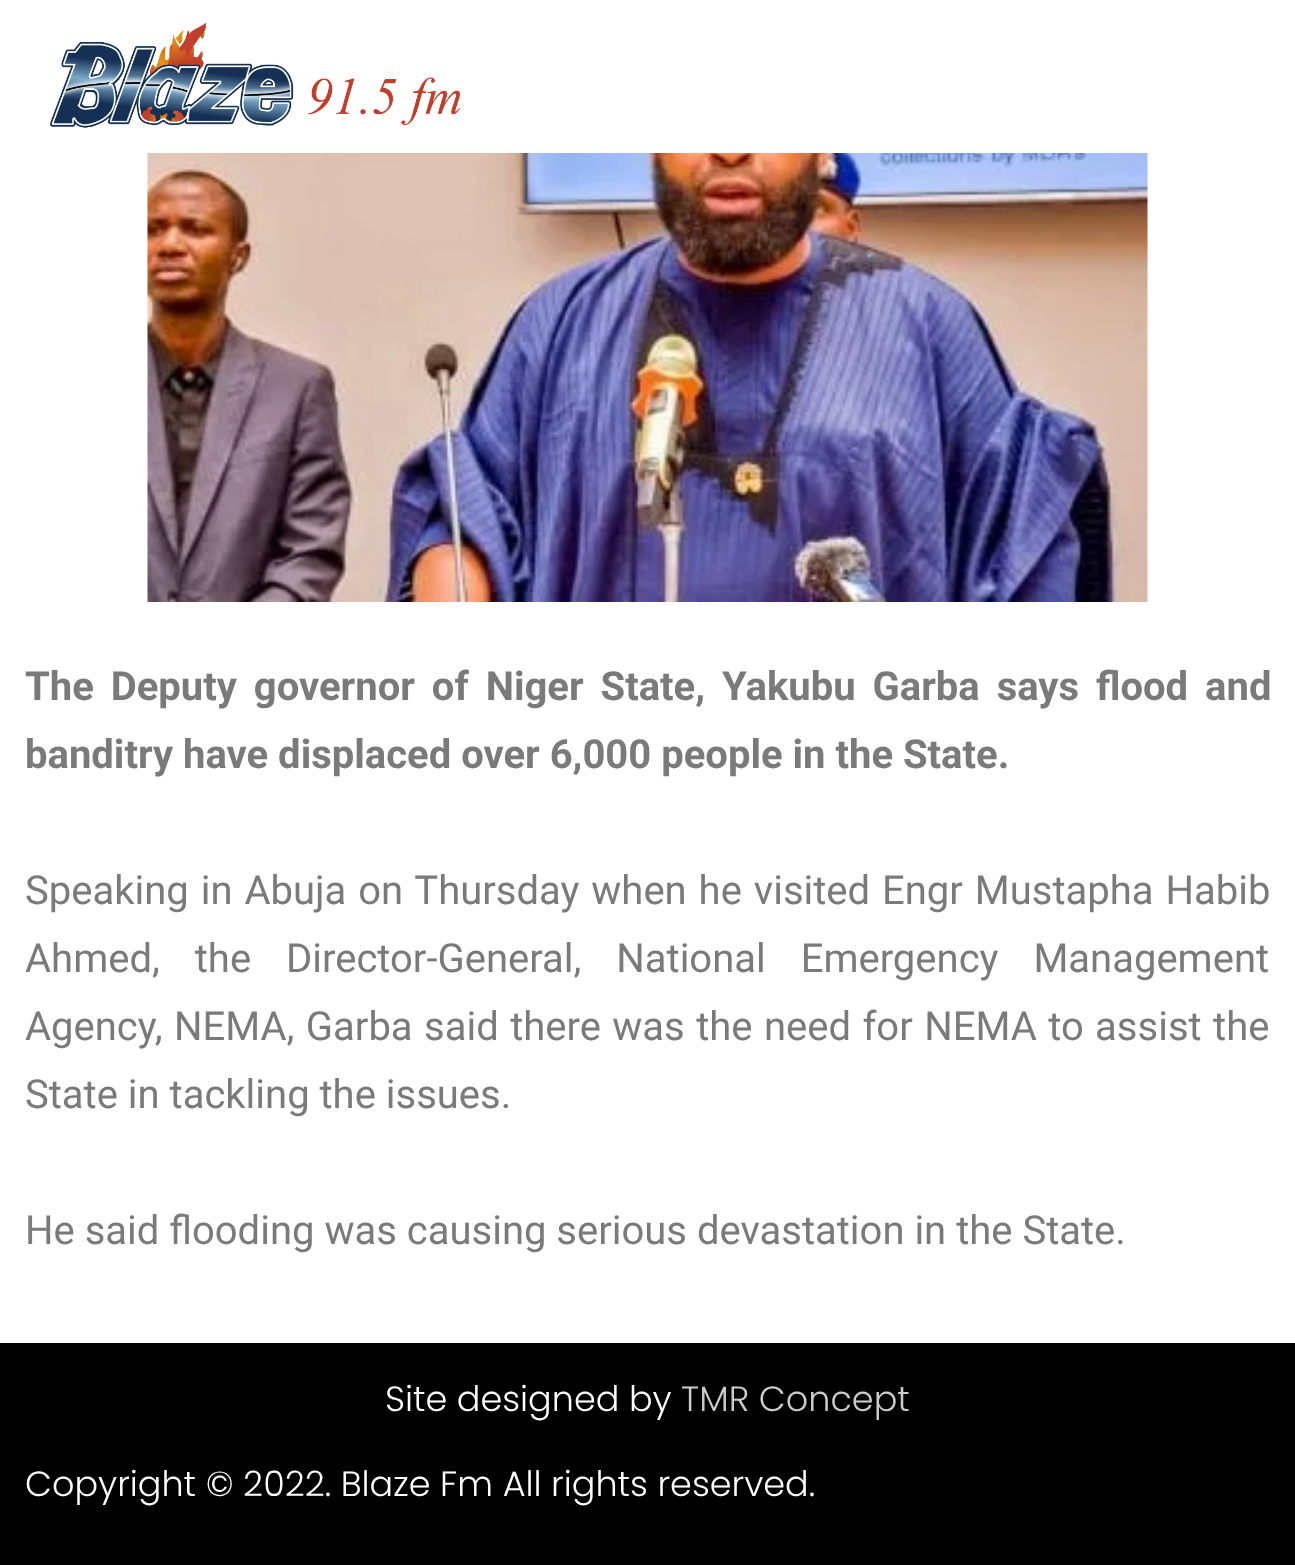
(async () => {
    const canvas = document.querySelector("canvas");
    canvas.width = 1295;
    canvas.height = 1565;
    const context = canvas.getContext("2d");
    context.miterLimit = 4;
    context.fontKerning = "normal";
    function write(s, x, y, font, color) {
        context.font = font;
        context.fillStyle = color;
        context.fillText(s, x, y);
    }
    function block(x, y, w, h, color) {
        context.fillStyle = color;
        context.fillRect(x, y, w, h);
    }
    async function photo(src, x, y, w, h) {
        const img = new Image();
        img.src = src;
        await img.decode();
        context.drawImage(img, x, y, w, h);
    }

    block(0, 0, 1295, 1565, "rgb(255, 255, 255)");
    await photo("media/1.png", 50, 23, 410, 105);
    await photo("media/2.png", 147, 153, 1001, 449);
    context.wordSpacing = "7px";
    write("The Deputy governor of Niger State, Yakubu Garba says flood and", 25, 700, "bold 40px Roboto", "rgb(122, 122, 122)");
    context.wordSpacing = "0px";
    write("banditry have displaced over 6,000 people in the State.", 25, 768, "bold 40px Roboto", "rgb(122, 122, 122)");
    context.wordSpacing = "2px";
    write("Speaking in Abuja on Thursday when he visited Engr Mustapha Habib", 25, 904, "40px Roboto", "rgb(122, 122, 122)");
    context.wordSpacing = "25px";
    write("Ahmed, the Director-General, National Emergency Management", 25, 972, "40px Roboto", "rgb(122, 122, 122)");
    context.wordSpacing = "1.5px";
    write("Agency, NEMA, Garba said there was the need for NEMA to assist the", 25, 1040, "40px Roboto", "rgb(122, 122, 122)");
    context.wordSpacing = "0px";
    write("State in tackling the issues.", 25, 1108, "40px Roboto", "rgb(122, 122, 122)");
    write("He said flooding was causing serious devastation in the State.", 25, 1244, "40px Roboto", "rgb(122, 122, 122)");
    block(0, 1343, 1295, 222, "rgb(0, 0, 0)");
    write("Site designed by", 385, 1411, "300 35px Poppins", "rgb(255, 255, 255)");
    write("TMR Concept", 681, 1411, "300 35px Poppins", "rgb(204, 204, 204)");
    write("Copyright © 2022. Blaze Fm All rights reserved.", 25, 1496, "300 35px Poppins", "rgb(255, 255, 255)");
})();
